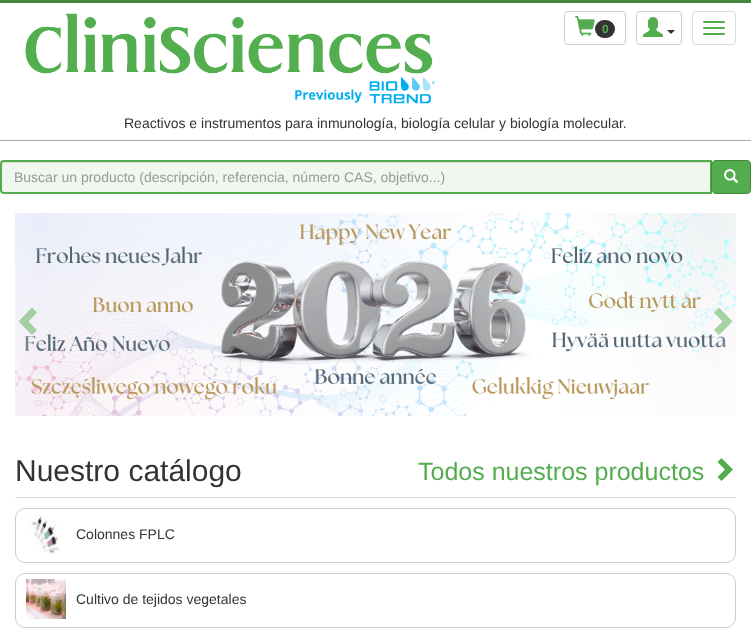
(async () => {
    const canvas = document.querySelector("canvas");
    canvas.width = 751;
    canvas.height = 633;
    const context = canvas.getContext("2d");
    context.miterLimit = 4;
    context.fontKerning = "normal";
    function write(s, x, y, font, color) {
        context.font = font;
        context.fillStyle = color;
        context.fillText(s, x, y);
    }
    function block(x, y, w, h, color) {
        context.fillStyle = color;
        context.fillRect(x, y, w, h);
    }
    function card(x, y, w, h, r, color) {
        context.fillStyle = color;
        context.beginPath();
        context.roundRect(x, y, w, h, r);
        context.fill();
    }
    async function photo(src, x, y, w, h) {
        const img = new Image();
        img.src = src;
        await img.decode();
        context.drawImage(img, x, y, w, h);
    }

    block(0, 0, 751, 633, "rgb(255, 255, 255)");
    block(0, 0, 751, 3, "rgb(66, 137, 62)");
    block(0, 140, 751, 1, "rgb(170, 170, 170)");
    await photo("media/1.png", 25, 13, 410, 91);
    context.beginPath();
    context.roundRect(564.5, 11.5, 61, 33, 3.5);
    context.strokeStyle = "rgb(204, 204, 204)";
    context.stroke();
    await photo("media/2.png", 575, 16, 20, 20);
    card(595, 20, 20, 18, 9, "rgb(51, 51, 51)");
    write("0", 602, 33, "bold 12px Liberation Sans", "rgb(83, 172, 78)");
    context.beginPath();
    context.roundRect(636.5, 11.5, 45, 33, 3.5);
    context.stroke();
    await photo("media/3.png", 643, 17, 20, 20);
    context.fillStyle = "rgb(51, 51, 51)";
    context.beginPath();
    context.moveTo(667, 30);
    context.lineTo(675, 30);
    context.lineTo(671, 34);
    context.closePath();
    context.fill();
    context.beginPath();
    context.roundRect(692.5, 11.5, 43, 33, 3.5);
    context.strokeStyle = "rgb(221, 221, 221)";
    context.stroke();
    card(703, 21, 22, 2, 1, "rgb(83, 172, 78)");
    card(703, 27, 22, 2, 1, "rgb(83, 172, 78)");
    card(703, 33, 22, 2, 1, "rgb(83, 172, 78)");
    write("Reactivos e instrumentos para inmunología, biología celular y biología molecular.", 124, 128, "14px Liberation Sans", "rgb(51, 51, 51)");
    context.fillStyle = "rgb(239, 247, 238)";
    context.beginPath();
    context.roundRect(0, 160, 712, 34, [4, 0, 0, 4]);
    context.fill();
    context.fillStyle = "rgb(221, 228, 220)";
    context.beginPath();
    context.moveTo(4, 163);
    context.lineTo(710, 163);
    context.lineTo(710, 162);
    context.lineTo(4, 162);
    context.bezierCurveTo(2, 162, 2, 164, 2, 165);
    context.bezierCurveTo(2, 164, 3, 163, 4, 163);
    context.closePath();
    context.fill();
    context.beginPath();
    context.roundRect(1, 161, 710, 32, [3, 0, 0, 3]);
    context.strokeStyle = "rgb(83, 172, 78)";
    context.lineWidth = 2;
    context.stroke();
    write("Buscar un producto (descripción, referencia, número CAS, objetivo...)", 14, 182, "14px Liberation Sans", "rgb(153, 153, 153)");
    context.fillStyle = "rgb(83, 172, 78)";
    context.beginPath();
    context.roundRect(711.5, 160.5, 39, 33, [4.5, 3.5, 3.5, 4.5]);
    context.fill();
    context.strokeStyle = "rgb(66, 137, 62)";
    context.lineWidth = 1;
    context.stroke();
    await photo("media/4.png", 724, 169, 15, 14);
    await photo("media/5.png", 15, 213, 721, 203);
    context.fillStyle = "rgba(83, 172, 78, 0.5)";
    context.beginPath();
    context.moveTo(37, 312.5);
    context.lineTo(28.5, 321.5);
    context.lineTo(37, 330);
    context.lineTo(32, 335);
    context.lineTo(18.5, 321.5);
    context.lineTo(32, 307.5);
    context.closePath();
    context.fill();
    context.beginPath();
    context.moveTo(732.5, 321.5);
    context.lineTo(719, 335);
    context.lineTo(714, 330);
    context.lineTo(722.5, 321.5);
    context.lineTo(714, 312.5);
    context.lineTo(719, 307.5);
    context.closePath();
    context.fill();
    context.fillStyle = "rgb(255, 255, 255)";
    context.beginPath();
    context.arc(312, 405, 5.5, 0, Math.PI * 2);
    context.fill();
    context.strokeStyle = "rgb(255, 255, 255)";
    context.stroke();
    context.beginPath();
    context.arc(328, 405, 4.5, 0, Math.PI * 2);
    context.stroke();
    context.beginPath();
    context.arc(344, 405, 4.5, 0, Math.PI * 2);
    context.stroke();
    context.beginPath();
    context.arc(360, 405, 4.5, 0, Math.PI * 2);
    context.stroke();
    context.beginPath();
    context.arc(376, 405, 4.5, 0, Math.PI * 2);
    context.stroke();
    context.beginPath();
    context.arc(391, 405, 4.5, 0, Math.PI * 2);
    context.stroke();
    context.beginPath();
    context.arc(407, 405, 4.5, 0, Math.PI * 2);
    context.stroke();
    context.beginPath();
    context.arc(423, 405, 4.5, 0, Math.PI * 2);
    context.stroke();
    context.beginPath();
    context.arc(439, 405, 4.5, 0, Math.PI * 2);
    context.stroke();
    block(15, 497, 721, 1, "rgb(221, 221, 221)");
    write("Nuestro catálogo", 15, 481, "30px Liberation Sans", "rgb(51, 51, 51)");
    write("Todos nuestros productos", 418, 480, "25px Liberation Sans", "rgb(83, 172, 78)");
    context.beginPath();
    context.moveTo(733, 469.5);
    context.lineTo(721.5, 481);
    context.lineTo(717.5, 477);
    context.lineTo(725, 469.5);
    context.lineTo(717.5, 462);
    context.lineTo(721.5, 458);
    context.closePath();
    context.fill();
    context.beginPath();
    context.roundRect(15.5, 508.5, 720, 54, 9.5);
    context.strokeStyle = "rgb(204, 204, 204)";
    context.stroke();
    await photo("media/6.png", 27, 514, 33, 40);
    write("Colonnes FPLC", 76, 539, "14px Liberation Sans", "rgb(51, 51, 51)");
    context.beginPath();
    context.roundRect(15.5, 573.5, 720, 54, 9.5);
    context.stroke();
    await photo("media/7.png", 26, 579, 40, 40);
    write("Cultivo de tejidos vegetales", 76, 604, "14px Liberation Sans", "rgb(51, 51, 51)");
})();
